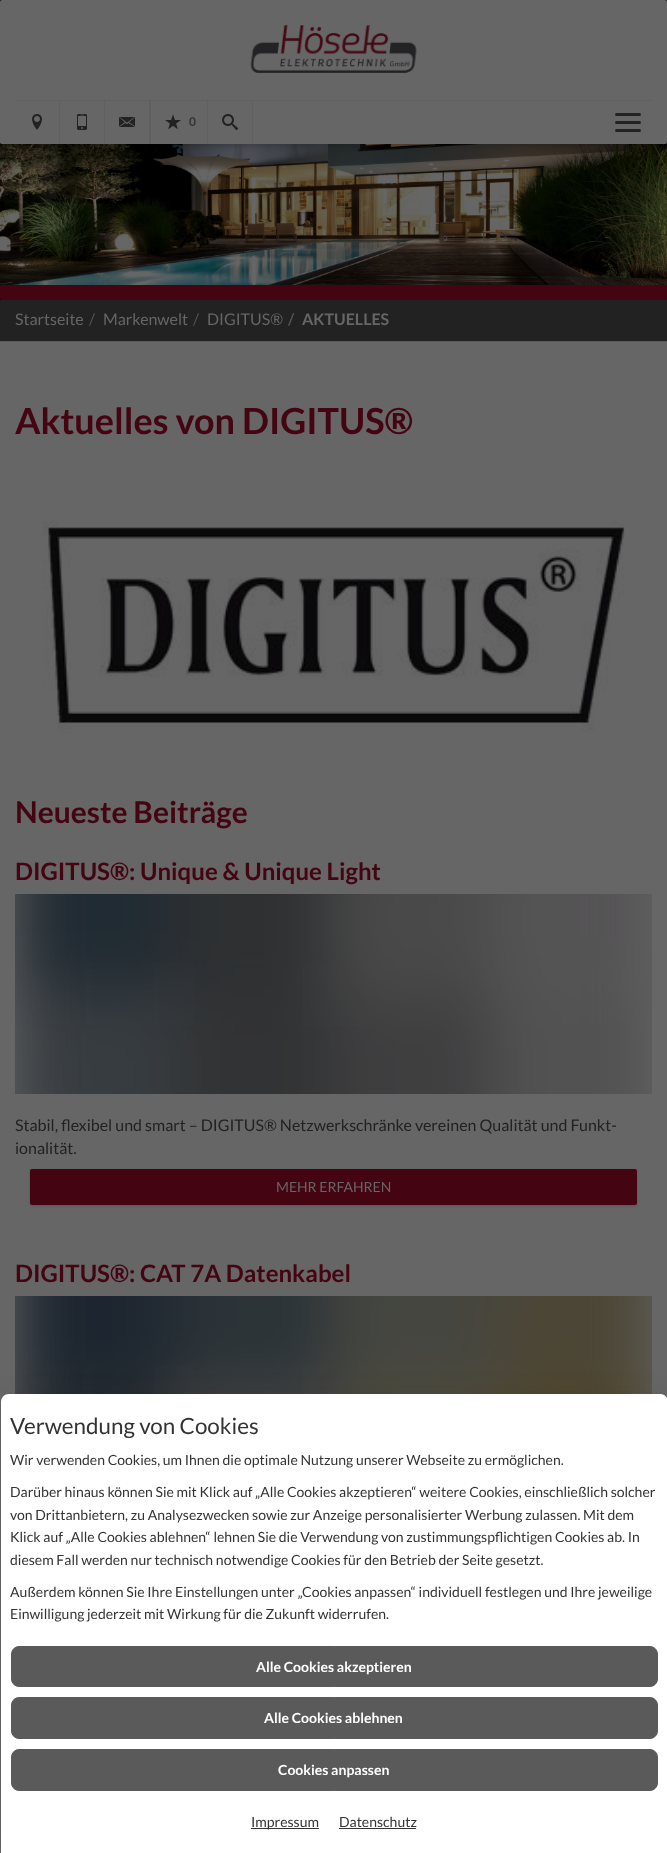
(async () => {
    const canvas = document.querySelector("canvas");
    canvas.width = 667;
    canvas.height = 1853;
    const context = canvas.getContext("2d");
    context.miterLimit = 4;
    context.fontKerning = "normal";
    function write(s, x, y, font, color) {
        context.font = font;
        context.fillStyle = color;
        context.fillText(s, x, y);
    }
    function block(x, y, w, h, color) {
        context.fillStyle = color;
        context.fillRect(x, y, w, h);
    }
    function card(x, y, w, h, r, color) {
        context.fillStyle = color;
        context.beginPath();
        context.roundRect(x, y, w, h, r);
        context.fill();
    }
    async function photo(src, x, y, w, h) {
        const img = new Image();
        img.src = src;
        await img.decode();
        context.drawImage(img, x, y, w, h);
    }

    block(0, 0, 667, 1853, "rgb(102, 102, 102)");
    context.fillStyle = "rgba(0, 0, 0, 0.1)";
    context.filter = "blur(0.5px)";
    context.beginPath();
    context.rect(0, 301, 667, 41);
    context.fill();
    context.filter = "none";
    await photo("media/7.png", 0, 0, 667, 300);
    context.fillStyle = "rgba(0, 0, 0, 0.15)";
    context.filter = "blur(2.5px)";
    context.beginPath();
    context.roundRect(0, 2, 667, 144, 2);
    context.fill();
    context.filter = "none";
    card(0, 0, 667, 144, 2, "rgb(102, 102, 102)");
    await photo("media/1.png", 250, 25, 167, 48);
    block(15, 100, 637, 1, "rgb(96, 96, 96)");
    await photo("media/2.png", 32, 114, 10, 16);
    block(59, 101, 1, 43, "rgb(96, 96, 96)");
    await photo("media/3.png", 77, 114, 10, 16);
    block(104, 101, 1, 43, "rgb(96, 96, 96)");
    await photo("media/4.png", 119, 117, 16, 10);
    block(149, 101, 2, 43, "rgb(96, 96, 96)");
    await photo("media/5.png", 165, 114, 16, 16);
    write("0", 189, 126, "bold 12px Lato", "rgb(51, 51, 51)");
    block(252, 101, 1, 43, "rgb(96, 96, 96)");
    block(207, 101, 1, 43, "rgb(96, 96, 96)");
    await photo("media/6.png", 222, 114, 16, 16);
    card(615, 113, 26, 3, 1.5, "rgb(34, 34, 34)");
    card(615, 121, 26, 3, 1.5, "rgb(34, 34, 34)");
    card(615, 129, 26, 3, 1.5, "rgb(34, 34, 34)");
    card(0, 285, 667, 15, 2, "rgb(68, 4, 17)");
    block(0, 300, 667, 41, "rgb(34, 34, 34)");
    write("Startseite", 15, 325, "16px Lato", "rgb(102, 102, 102)");
    write("/", 89, 325, "16px Lato", "rgb(82, 82, 82)");
    write("Markenwelt", 103, 325, "16px Lato", "rgb(102, 102, 102)");
    write("/", 193, 325, "16px Lato", "rgb(82, 82, 82)");
    write("DIGITUS®", 207, 325, "16px Lato", "rgb(102, 102, 102)");
    write("/", 288, 325, "bold 16px Lato", "rgb(82, 82, 82)");
    write("AKTUELLES", 302, 325, "bold 16px Lato", "rgb(102, 102, 102)");
    write("Aktuelles von DIGITUS®", 15, 434, "bold 36px Lato", "rgb(68, 4, 17)");
    await photo("media/8.png", 43, 521, 582, 212);
    write("Neueste Beiträge", 15, 823, "bold 30px Lato", "rgb(68, 4, 17)");
    write("DIGITUS®: Unique & Unique Light", 15, 880, "bold 24px Lato", "rgb(68, 4, 17)");
    await photo("media/9.png", 15, 894, 637, 200);
    write("Stabil, flexibel und smart – DIGITUS® Netzwerkschränke vereinen Qualität und Funkt-", 15, 1131, "16px Lato", "rgb(34, 34, 34)");
    write("ionalität.", 15, 1154, "16px Lato", "rgb(34, 34, 34)");
    context.fillStyle = "rgba(0, 0, 0, 0.15)";
    context.filter = "blur(1px)";
    context.beginPath();
    context.roundRect(30, 1170, 607, 36, 2);
    context.fill();
    context.filter = "none";
    card(30, 1169, 607, 36, 2, "rgb(68, 4, 17)");
    write("MEHR ERFAHREN", 276, 1192, "14px Lato", "rgb(102, 102, 102)");
    write("DIGITUS®: CAT 7A Datenkabel", 15, 1282, "bold 24px Lato", "rgb(68, 4, 17)");
    await photo("media/10.png", 15, 1296, 637, 98);
    context.fillStyle = "rgba(0, 0, 0, 0.1)";
    context.filter = "blur(14px)";
    context.beginPath();
    context.roundRect(1, 1400, 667, 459, 8);
    context.fill();
    context.filter = "none";
    context.fillStyle = "rgb(255, 255, 255)";
    context.beginPath();
    context.moveTo(9, 1394);
    context.lineTo(660, 1394);
    context.bezierCurveTo(664.5, 1394, 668, 1397.5, 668, 1402);
    context.lineTo(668, 1853);
    context.lineTo(1, 1853);
    context.lineTo(1, 1402);
    context.bezierCurveTo(1, 1397.5, 4.5, 1394, 9, 1394);
    context.closePath();
    context.fill();
    write("Verwendung von Cookies", 10, 1434, "22.4px Lato", "rgb(51, 51, 51)");
    write("Wir verwenden Cookies, um Ihnen die optimale Nutzung unserer Webseite zu ermöglichen.", 10, 1465, "14px Lato", "rgb(51, 51, 51)");
    write("Darüber hinaus können Sie mit Klick auf „Alle Cookies akzeptieren“ weitere Cookies, einschließlich solcher", 10, 1497, "14px Lato", "rgb(51, 51, 51)");
    write("von Drittanbietern, zu Analysezwecken sowie zur Anzeige personalisierter Werbung zulassen. Mit dem", 10, 1520, "14px Lato", "rgb(51, 51, 51)");
    write("Klick auf „Alle Cookies ablehnen“ lehnen Sie die Verwendung von zustimmungspflichtigen Cookies ab. In", 10, 1542, "14px Lato", "rgb(51, 51, 51)");
    write("diesem Fall werden nur technisch notwendige Cookies für den Betrieb der Seite gesetzt.", 10, 1565, "14px Lato", "rgb(51, 51, 51)");
    write("Außerdem können Sie Ihre Einstellungen unter „Cookies anpassen“ individuell festlegen und Ihre jeweilige", 10, 1597, "14px Lato", "rgb(51, 51, 51)");
    write("Einwilligung jederzeit mit Wirkung für die Zukunft widerrufen.", 10, 1619, "14px Lato", "rgb(51, 51, 51)");
    context.fillStyle = "rgb(90, 90, 90)";
    context.beginPath();
    context.roundRect(11.5, 1646.5, 646, 40, 7.5);
    context.fill();
    context.strokeStyle = "rgb(90, 90, 90)";
    context.stroke();
    write("Alle Cookies akzeptieren", 256, 1672, "bold 14px Lato", "rgb(255, 255, 255)");
    context.fillStyle = "rgb(90, 90, 90)";
    context.beginPath();
    context.roundRect(11.5, 1697.5, 646, 41, 7.5);
    context.fill();
    context.stroke();
    write("Alle Cookies ablehnen", 264, 1723, "bold 14px Lato", "rgb(255, 255, 255)");
    context.fillStyle = "rgb(90, 90, 90)";
    context.beginPath();
    context.roundRect(11.5, 1749.5, 646, 41, 7.5);
    context.fill();
    context.stroke();
    write("Cookies anpassen", 278, 1775, "bold 14px Lato", "rgb(255, 255, 255)");
    block(251, 1828, 68, 1, "rgb(51, 51, 51)");
    write("Impressum", 251, 1827, "14px Lato", "rgb(51, 51, 51)");
    write("Datenschutz", 339, 1827, "14px Lato", "rgb(51, 51, 51)");
    block(339, 1828, 77, 1, "rgb(51, 51, 51)");
})();
